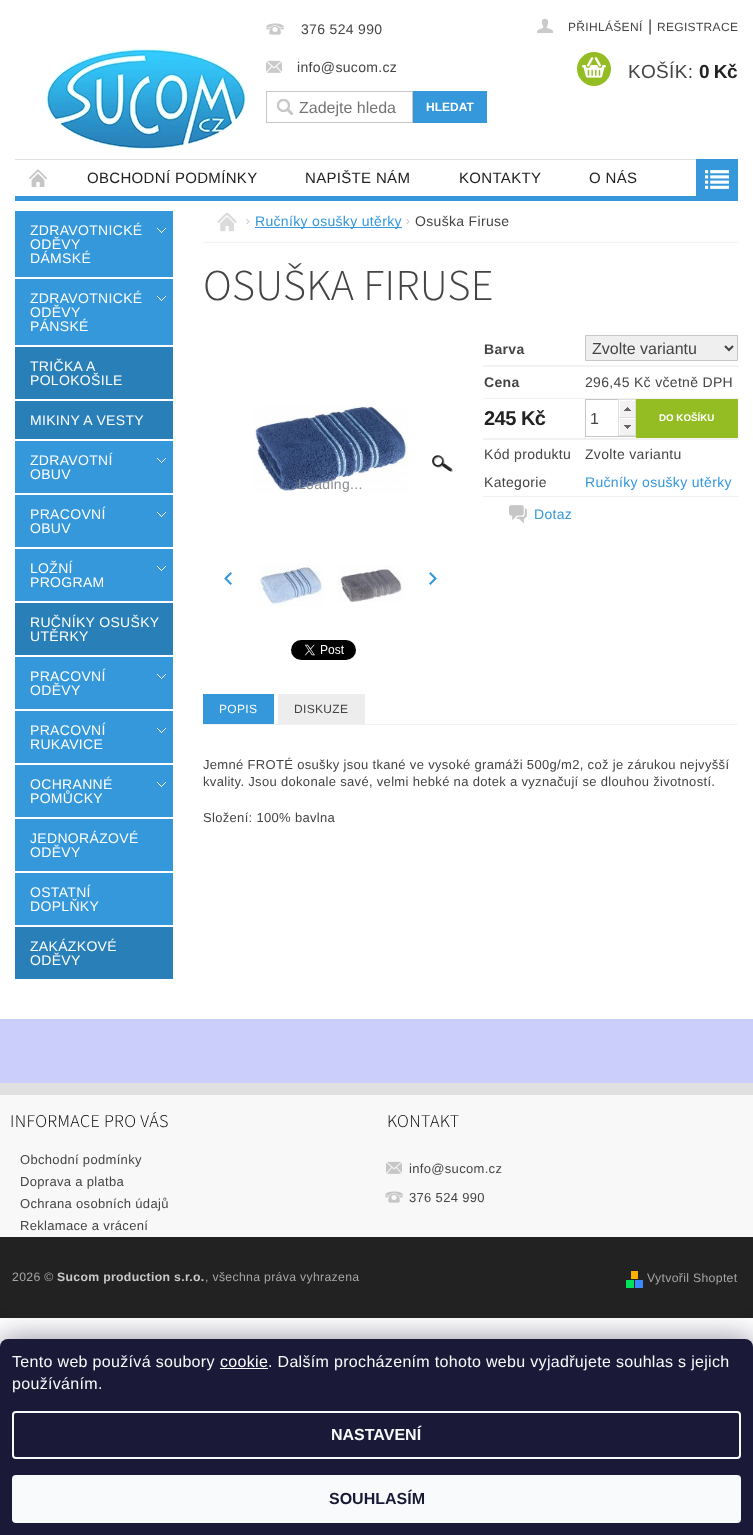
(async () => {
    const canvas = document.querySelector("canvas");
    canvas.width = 753;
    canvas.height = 1535;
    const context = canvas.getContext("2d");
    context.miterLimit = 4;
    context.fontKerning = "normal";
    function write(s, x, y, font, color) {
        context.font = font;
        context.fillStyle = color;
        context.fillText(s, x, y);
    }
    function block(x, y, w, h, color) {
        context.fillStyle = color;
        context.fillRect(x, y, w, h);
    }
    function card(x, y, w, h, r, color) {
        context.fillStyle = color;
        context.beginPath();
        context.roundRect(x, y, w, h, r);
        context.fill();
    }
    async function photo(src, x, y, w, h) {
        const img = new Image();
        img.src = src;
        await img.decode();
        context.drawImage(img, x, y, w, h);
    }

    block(0, 0, 753, 1535, "rgb(255, 255, 255)");
    block(0, 1019, 753, 64, "rgb(203, 206, 251)");
    block(15, 196, 681, 5, "rgb(52, 152, 219)");
    await photo("media/1.png", 41, 48, 204, 102);
    await photo("media/2.png", 266, 23, 18, 12);
    context.letterSpacing = "0.32px";
    write("376 524 990", 301, 34, "14px Liberation Sans", "rgb(68, 68, 68)");
    await photo("media/3.png", 266, 60, 16, 13);
    write("info@sucom.cz", 297, 72, "14px Liberation Sans", "rgb(68, 68, 68)");
    await photo("media/4.png", 277, 99, 16, 16);
    context.strokeStyle = "rgb(198, 198, 198)";
    context.strokeRect(266.5, 91.5, 146, 31);
    context.letterSpacing = "0px";
    write("Zadejte hleda", 299, 113, "16px Liberation Sans", "rgb(117, 117, 117)");
    block(413, 91, 74, 32, "rgb(52, 152, 219)");
    write("HLEDAT", 426, 111, "bold 12px Liberation Sans", "rgb(255, 255, 255)");
    await photo("media/5.png", 537, 18, 16, 15);
    context.letterSpacing = "0.32px";
    write("PŘIHLÁŠENÍ", 568, 31, "12px Liberation Sans", "rgb(68, 68, 68)");
    write("|", 648, 31, "16px Liberation Sans", "rgb(68, 68, 68)");
    write("REGISTRACE", 657, 31, "12px Liberation Sans", "rgb(68, 68, 68)");
    context.fillStyle = "rgb(148, 189, 35)";
    context.beginPath();
    context.arc(594, 69, 17, 0, Math.PI * 2);
    context.fill();
    await photo("media/6.png", 582, 57, 24, 21);
    write("KOŠÍK:", 628, 78, "19px Liberation Sans", "rgb(68, 68, 68)");
    context.letterSpacing = "-0.5px";
    write("0 Kč", 699, 78, "bold 19px Liberation Sans", "rgb(34, 34, 34)");
    block(15, 159, 681, 1, "rgb(224, 224, 224)");
    await photo("media/7.png", 29, 169, 18, 18);
    context.letterSpacing = "0.32px";
    write("OBCHODNÍ PODMÍNKY", 87, 183, "15px Liberation Sans", "rgb(34, 34, 34)");
    write("NAPIŠTE NÁM", 305, 183, "15px Liberation Sans", "rgb(34, 34, 34)");
    write("KONTAKTY", 459, 183, "15px Liberation Sans", "rgb(34, 34, 34)");
    write("O NÁS", 589, 183, "15px Liberation Sans", "rgb(34, 34, 34)");
    block(696, 159, 42, 42, "rgb(52, 152, 219)");
    await photo("media/8.png", 705, 170, 24, 19);
    block(15, 211, 158, 66, "rgb(52, 152, 219)");
    await photo("media/9.png", 157, 228, 9, 5);
    write("ZDRAVOTNICKÉ", 30, 235, "14px Liberation Sans", "rgb(255, 255, 255)");
    write("ODĚVY", 30, 249, "14px Liberation Sans", "rgb(255, 255, 255)");
    write("DÁMSKÉ", 30, 263, "14px Liberation Sans", "rgb(255, 255, 255)");
    block(15, 279, 158, 66, "rgb(52, 152, 219)");
    await photo("media/9.png", 157, 296, 9, 5);
    write("ZDRAVOTNICKÉ", 30, 303, "14px Liberation Sans", "rgb(255, 255, 255)");
    write("ODĚVY", 30, 317, "14px Liberation Sans", "rgb(255, 255, 255)");
    write("PÁNSKÉ", 30, 331, "14px Liberation Sans", "rgb(255, 255, 255)");
    block(15, 347, 158, 52, "rgb(41, 128, 185)");
    write("TRIČKA A", 30, 371, "14px Liberation Sans", "rgb(255, 255, 255)");
    write("POLOKOŠILE", 30, 385, "14px Liberation Sans", "rgb(255, 255, 255)");
    block(15, 401, 158, 38, "rgb(41, 128, 185)");
    write("MIKINY A VESTY", 30, 425, "14px Liberation Sans", "rgb(255, 255, 255)");
    block(15, 441, 158, 52, "rgb(52, 152, 219)");
    await photo("media/9.png", 157, 458, 9, 5);
    write("ZDRAVOTNÍ", 30, 465, "14px Liberation Sans", "rgb(255, 255, 255)");
    write("OBUV", 30, 479, "14px Liberation Sans", "rgb(255, 255, 255)");
    block(15, 495, 158, 52, "rgb(52, 152, 219)");
    await photo("media/9.png", 157, 512, 9, 5);
    write("PRACOVNÍ", 30, 519, "14px Liberation Sans", "rgb(255, 255, 255)");
    write("OBUV", 30, 533, "14px Liberation Sans", "rgb(255, 255, 255)");
    block(15, 549, 158, 52, "rgb(52, 152, 219)");
    await photo("media/9.png", 157, 566, 9, 5);
    write("LOŽNÍ", 30, 573, "14px Liberation Sans", "rgb(255, 255, 255)");
    write("PROGRAM", 30, 587, "14px Liberation Sans", "rgb(255, 255, 255)");
    block(15, 603, 158, 52, "rgb(41, 128, 185)");
    write("RUČNÍKY OSUŠKY", 30, 627, "14px Liberation Sans", "rgb(255, 255, 255)");
    write("UTĚRKY", 30, 641, "14px Liberation Sans", "rgb(255, 255, 255)");
    block(15, 657, 158, 52, "rgb(52, 152, 219)");
    await photo("media/9.png", 157, 674, 9, 5);
    write("PRACOVNÍ", 30, 681, "14px Liberation Sans", "rgb(255, 255, 255)");
    write("ODĚVY", 30, 695, "14px Liberation Sans", "rgb(255, 255, 255)");
    block(15, 711, 158, 52, "rgb(52, 152, 219)");
    await photo("media/9.png", 157, 728, 9, 5);
    write("PRACOVNÍ", 30, 735, "14px Liberation Sans", "rgb(255, 255, 255)");
    write("RUKAVICE", 30, 749, "14px Liberation Sans", "rgb(255, 255, 255)");
    block(15, 765, 158, 52, "rgb(52, 152, 219)");
    await photo("media/9.png", 157, 782, 9, 5);
    write("OCHRANNÉ", 30, 789, "14px Liberation Sans", "rgb(255, 255, 255)");
    write("POMŮCKY", 30, 803, "14px Liberation Sans", "rgb(255, 255, 255)");
    block(15, 819, 158, 52, "rgb(52, 152, 219)");
    write("JEDNORÁZOVÉ", 30, 843, "14px Liberation Sans", "rgb(255, 255, 255)");
    write("ODĚVY", 30, 857, "14px Liberation Sans", "rgb(255, 255, 255)");
    block(15, 873, 158, 52, "rgb(52, 152, 219)");
    write("OSTATNÍ", 30, 897, "14px Liberation Sans", "rgb(255, 255, 255)");
    write("DOPLŇKY", 30, 911, "14px Liberation Sans", "rgb(255, 255, 255)");
    block(15, 927, 158, 52, "rgb(41, 128, 185)");
    write("ZAKÁZKOVÉ", 30, 951, "14px Liberation Sans", "rgb(255, 255, 255)");
    write("ODĚVY", 30, 965, "14px Liberation Sans", "rgb(255, 255, 255)");
    block(203, 242, 535, 1, "rgb(242, 242, 242)");
    await photo("media/10.png", 217, 213, 20, 19);
    await photo("media/11.png", 246, 219, 4, 5);
    block(255, 227, 147, 1, "rgb(52, 152, 219)");
    write("Ručníky osušky utěrky", 255, 226, "14px Liberation Sans", "rgb(52, 152, 219)");
    await photo("media/11.png", 406, 219, 4, 5);
    write("Osuška Firuse", 415, 226, "14px Liberation Sans", "rgb(68, 68, 68)");
    write("OSUŠKA FIRUSE", 203, 300, "300 44px 'Source Sans 3'", "rgb(68, 68, 68)");
    await photo("media/12.png", 432, 455, 21, 18);
    await photo("media/13.png", 252, 406, 156, 87);
    write("Loading...", 298, 489, "14px Liberation Sans", "rgb(139, 142, 147)");
    block(224, 572, 8, 13, "rgb(52, 152, 219)");
    await photo("media/14.png", 224, 572, 8, 13);
    await photo("media/15.png", 258, 564, 66, 43);
    await photo("media/16.png", 338, 565, 66, 38);
    block(429, 572, 8, 13, "rgb(52, 152, 219)");
    await photo("media/17.png", 429, 572, 8, 13);
    await photo("media/18.png", 291, 640, 65, 20);
    write("Barva", 484, 354, "bold 14px Liberation Sans", "rgb(68, 68, 68)");
    context.fillStyle = "rgb(239, 239, 239)";
    context.beginPath();
    context.rect(585.5, 335.5, 152, 25);
    context.fill();
    context.stroke();
    context.beginPath();
    context.moveTo(725, 346);
    context.lineTo(729, 350);
    context.lineTo(733, 346);
    context.strokeStyle = "rgb(68, 68, 68)";
    context.lineWidth = 2;
    context.stroke();
    context.letterSpacing = "0px";
    write("Zvolte variantu", 592, 354, "16px Liberation Sans", "rgb(68, 68, 68)");
    block(483, 365, 256, 2, "rgb(242, 242, 242)");
    block(483, 398, 256, 1, "rgb(242, 242, 242)");
    context.letterSpacing = "0.32px";
    write("Cena", 484, 387, "bold 14px Liberation Sans", "rgb(68, 68, 68)");
    write("296,45 Kč včetně DPH", 585, 387, "14px Liberation Sans", "rgb(68, 68, 68)");
    block(483, 438, 256, 2, "rgb(242, 242, 242)");
    context.letterSpacing = "-0.5px";
    write("245 Kč", 484, 425, "bold 20px Liberation Sans", "rgb(34, 34, 34)");
    context.strokeStyle = "rgb(198, 198, 198)";
    context.lineWidth = 1;
    context.strokeRect(585.5, 399.5, 50, 37);
    context.letterSpacing = "0px";
    write("1", 590, 424, "16px Liberation Sans", "rgb(68, 68, 68)");
    await photo("media/19.png", 618, 399, 18, 18);
    await photo("media/20.png", 618, 417, 18, 19);
    block(636, 399, 102, 39, "rgb(148, 189, 35)");
    write("DO KOŠÍKU", 659, 421, "bold 9.75px Liberation Sans", "rgb(255, 255, 255)");
    context.letterSpacing = "0.32px";
    write("Kód produktu", 484, 459, "14px Liberation Sans", "rgb(68, 68, 68)");
    write("Zvolte variantu", 585, 459, "14px Liberation Sans", "rgb(68, 68, 68)");
    block(483, 496, 256, 1, "rgb(242, 242, 242)");
    write("Kategorie", 484, 487, "14px Liberation Sans", "rgb(68, 68, 68)");
    write("Ručníky osušky utěrky", 585, 487, "14px Liberation Sans", "rgb(52, 152, 219)");
    await photo("media/21.png", 509, 505, 18, 19);
    write("Dotaz", 534, 519, "14px Liberation Sans", "rgb(52, 152, 219)");
    block(203, 724, 535, 1, "rgb(242, 242, 242)");
    block(203, 694, 71, 30, "rgb(52, 152, 219)");
    write("POPIS", 219, 713, "12px Liberation Sans", "rgb(255, 255, 255)");
    block(278, 694, 87, 30, "rgb(237, 237, 237)");
    write("DISKUZE", 294, 713, "12px Liberation Sans", "rgb(68, 68, 68)");
    write("Jemné FROTÉ osušky jsou tkané ve vysoké gramáži 500g/m2, což je zárukou nejvyšší", 203, 769, "13px Liberation Sans", "rgb(68, 68, 68)");
    write("kvality. Jsou dokonale savé, velmi hebké na dotek a vyznačují se dlouhou životností.", 203, 786, "13px Liberation Sans", "rgb(68, 68, 68)");
    write("Složení: 100% bavlna", 203, 822, "13px Liberation Sans", "rgb(68, 68, 68)");
    block(0, 1095, 753, 142, "rgb(248, 248, 248)");
    block(0, 1083, 753, 12, "rgb(224, 224, 224)");
    write("INFORMACE PRO VÁS", 10, 1127, "300 18px 'Source Sans 3'", "rgb(0, 0, 0)");
    write("Obchodní podmínky", 20, 1164, "13px Liberation Sans", "rgb(68, 68, 68)");
    write("Doprava a platba", 20, 1186, "13px Liberation Sans", "rgb(68, 68, 68)");
    write("Ochrana osobních údajů", 20, 1208, "13px Liberation Sans", "rgb(68, 68, 68)");
    write("Reklamace a vrácení", 20, 1230, "13px Liberation Sans", "rgb(68, 68, 68)");
    write("KONTAKT", 387, 1127, "300 18px 'Source Sans 3'", "rgb(0, 0, 0)");
    await photo("media/22.png", 386, 1161, 16, 13);
    write("info@sucom.cz", 409, 1173, "13px Liberation Sans", "rgb(68, 68, 68)");
    await photo("media/23.png", 385, 1191, 18, 12);
    write("376 524 990", 409, 1202, "13px Liberation Sans", "rgb(68, 68, 68)");
    block(0, 1237, 753, 81, "rgb(34, 34, 34)");
    write("2026 ©", 12, 1281, "12.25px Liberation Sans", "rgb(166, 166, 166)");
    write("Sucom production s.r.o.", 57, 1281, "bold 12.25px Liberation Sans", "rgb(201, 201, 201)");
    write(", všechna práva vyhrazena", 205, 1281, "12.25px Liberation Sans", "rgb(166, 166, 166)");
    block(631, 1271, 7, 8, "rgb(252, 175, 0)");
    block(626, 1280, 8, 8, "rgb(0, 226, 90)");
    block(635, 1280, 8, 8, "rgb(59, 136, 255)");
    write("Vytvořil Shoptet", 647, 1282, "12.25px Liberation Sans", "rgb(166, 166, 166)");
    context.fillStyle = "rgba(27, 25, 57, 0.5)";
    context.filter = "blur(15px)";
    context.beginPath();
    context.roundRect(0, 1339, 753, 196, 8);
    context.fill();
    context.filter = "none";
    context.fillStyle = "rgb(26, 25, 55)";
    context.beginPath();
    context.roundRect(0, 1339, 753, 196, [8, 8, 0, 0]);
    context.fill();
    write("Tento web používá soubory", 12, 1367, "16px Liberation Sans", "rgb(248, 250, 251)");
    write("cookie", 220, 1367, "16px Liberation Sans", "rgb(255, 255, 255)");
    block(220, 1368, 48, 1, "rgb(248, 250, 251)");
    write(". Dalším procházením tohoto webu vyjadřujete souhlas s jejich", 268, 1367, "16px Liberation Sans", "rgb(248, 250, 251)");
    write("používáním.", 12, 1389, "16px Liberation Sans", "rgb(248, 250, 251)");
    context.beginPath();
    context.roundRect(13, 1412, 727, 46, 3);
    context.strokeStyle = "rgb(248, 250, 251)";
    context.lineWidth = 2;
    context.stroke();
    context.letterSpacing = "0px";
    write("NASTAVENÍ", 331, 1440, "bold 16px Liberation Sans", "rgb(248, 250, 251)");
    card(12, 1475, 729, 48, 4, "rgb(248, 250, 251)");
    write("SOUHLASÍM", 329, 1504, "bold 16px Liberation Sans", "rgb(26, 25, 55)");
})();
